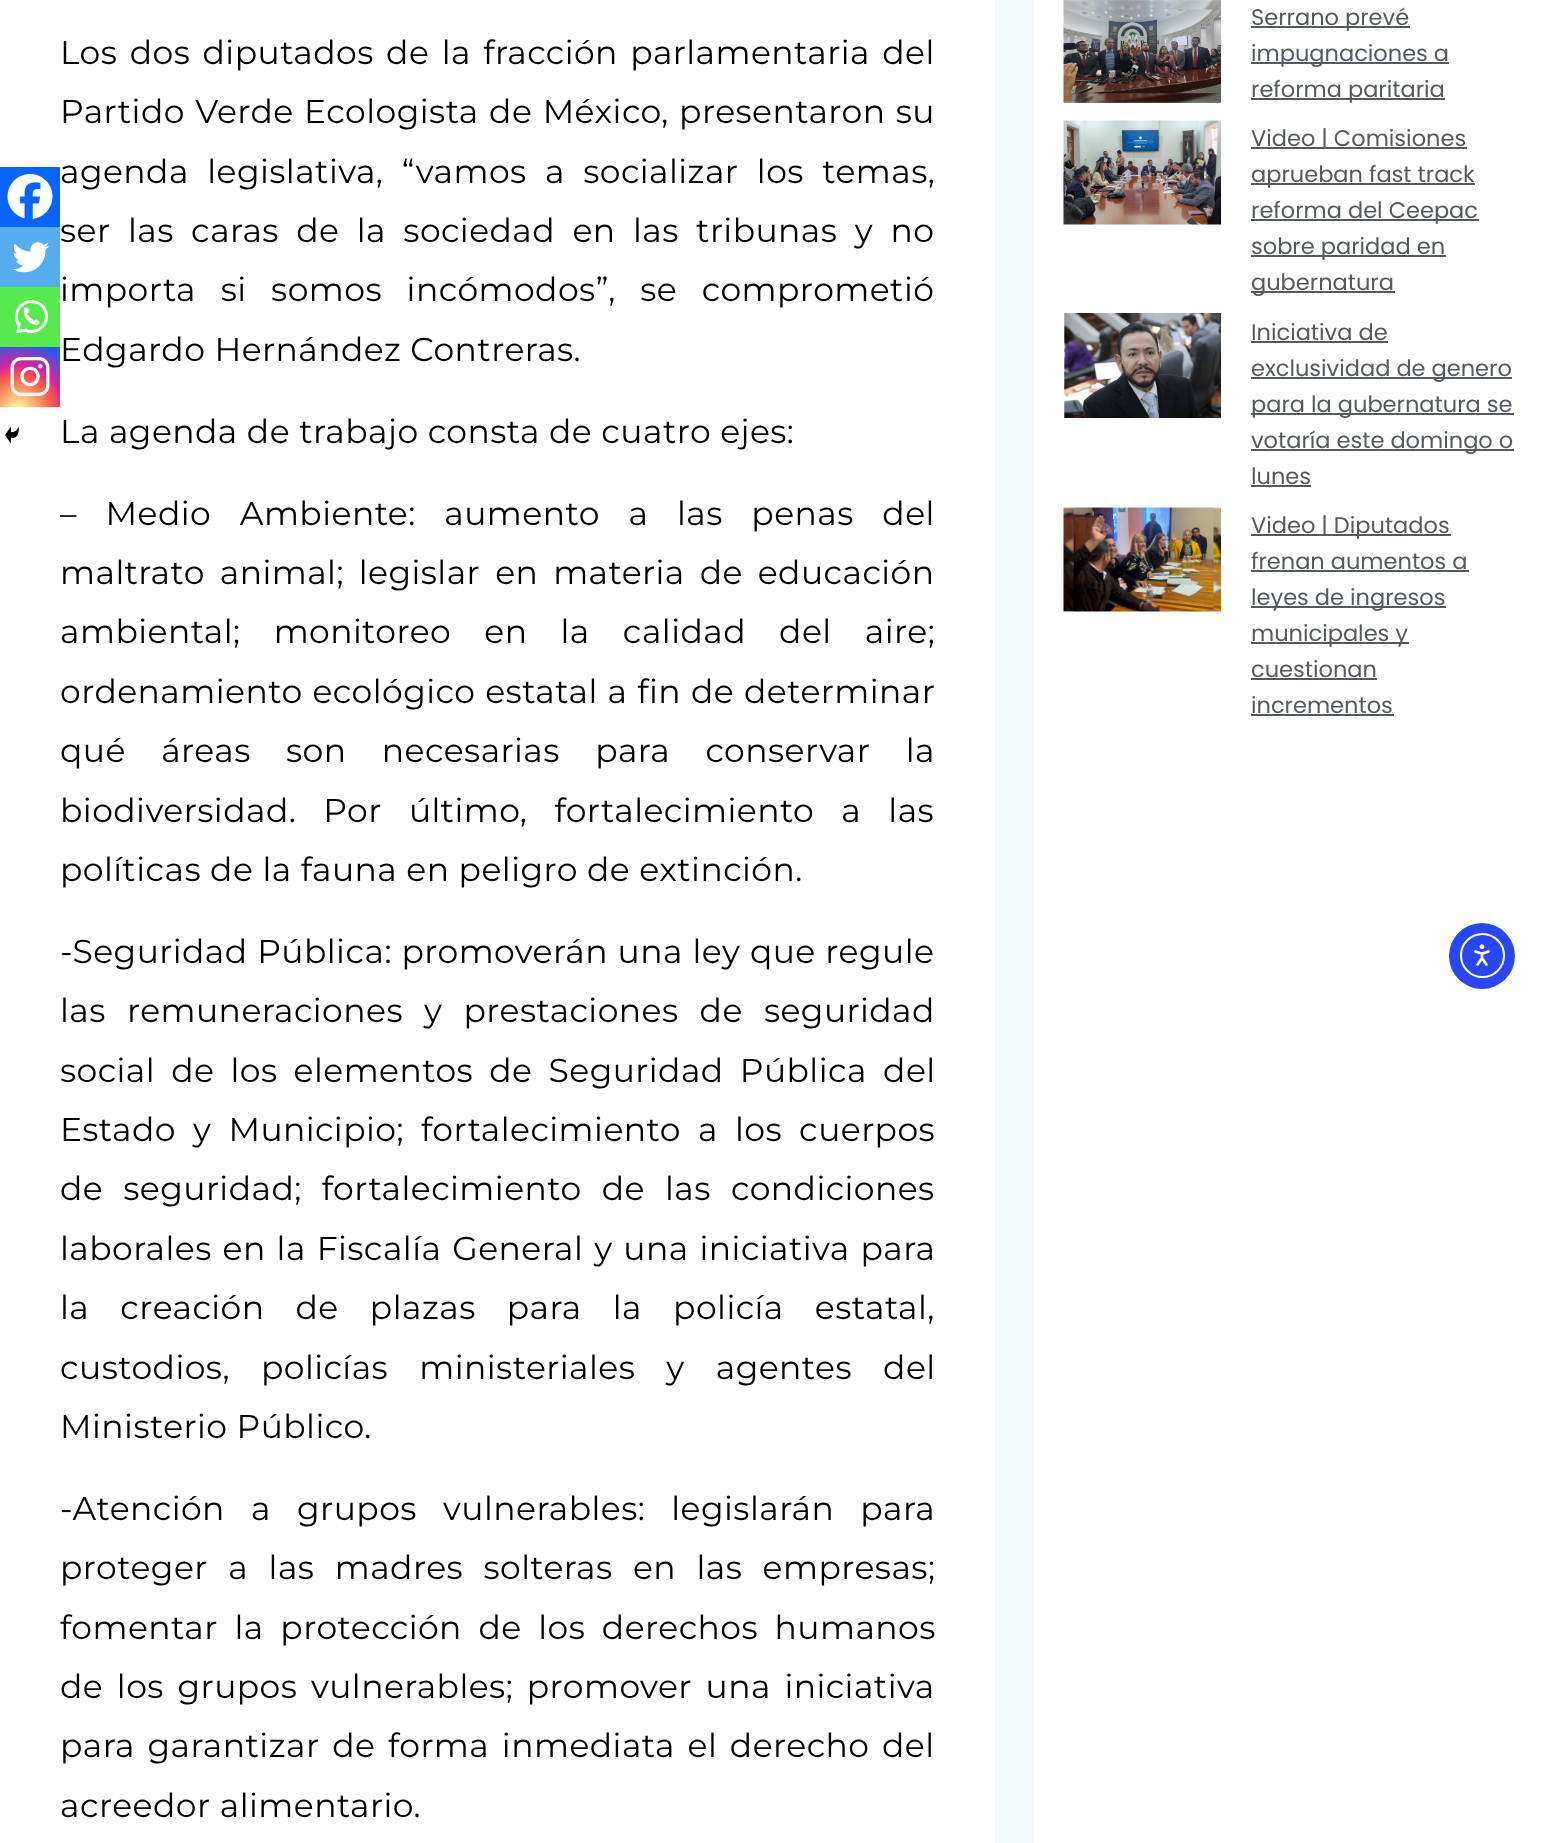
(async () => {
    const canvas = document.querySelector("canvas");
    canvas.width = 1551;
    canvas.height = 1843;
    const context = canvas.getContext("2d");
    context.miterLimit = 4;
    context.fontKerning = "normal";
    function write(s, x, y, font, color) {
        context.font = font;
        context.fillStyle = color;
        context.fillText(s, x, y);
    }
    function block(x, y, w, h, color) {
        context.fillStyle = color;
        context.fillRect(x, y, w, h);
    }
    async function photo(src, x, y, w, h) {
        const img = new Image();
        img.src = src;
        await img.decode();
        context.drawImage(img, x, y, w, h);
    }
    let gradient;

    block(0, 0, 1551, 1843, "rgb(243, 248, 251)");
    block(0, 0, 995, 1843, "rgb(255, 255, 255)");
    block(0, 167, 60, 60, "rgb(7, 101, 254)");
    await photo("media/1.png", 7, 174, 46, 45);
    block(0, 227, 60, 60, "rgb(85, 172, 238)");
    await photo("media/2.png", 12, 242, 37, 31);
    block(0, 287, 60, 60, "rgb(85, 235, 76)");
    await photo("media/3.png", 15, 300, 33, 34);
    gradient = context.createRadialGradient(18, 411, 0, 18, 411, 77);
    gradient.addColorStop(0, "rgb(253, 244, 151)");
    gradient.addColorStop(0.05, "rgb(253, 244, 151)");
    gradient.addColorStop(0.45, "rgb(253, 89, 73)");
    gradient.addColorStop(0.6, "rgb(214, 36, 159)");
    gradient.addColorStop(0.9, "rgb(40, 90, 235)");
    context.fillStyle = gradient;
    context.fillRect(0, 347, 60, 60);
    await photo("media/4.png", 10, 357, 40, 39);
    await photo("media/5.png", 5, 426, 14, 18);
    context.letterSpacing = "0.45px";
    context.wordSpacing = "3.25px";
    write("Los dos diputados de la fracción parlamentaria del", 60, 64, "33px Montserrat", "rgb(0, 0, 0)");
    context.wordSpacing = "1.25px";
    write("Partido Verde Ecologista de México, presentaron su", 60, 123, "33px Montserrat", "rgb(0, 0, 0)");
    context.wordSpacing = "9.25px";
    write("agenda legislativa, “vamos a socializar los temas,", 60, 183, "33px Montserrat", "rgb(0, 0, 0)");
    context.wordSpacing = "8.25px";
    write("ser las caras de la sociedad en las tribunas y no", 60, 242, "33px Montserrat", "rgb(0, 0, 0)");
    context.wordSpacing = "15.5px";
    write("importa si somos incómodos”, se comprometió", 60, 301, "33px Montserrat", "rgb(0, 0, 0)");
    context.wordSpacing = "0px";
    write("Edgardo Hernández Contreras.", 60, 361, "33px Montserrat", "rgb(0, 0, 0)");
    write("La agenda de trabajo consta de cuatro ejes:", 60, 443, "33px Montserrat", "rgb(0, 0, 0)");
    context.wordSpacing = "19.5px";
    write("– Medio Ambiente: aumento a las penas del", 60, 525, "33px Montserrat", "rgb(0, 0, 0)");
    context.wordSpacing = "5.75px";
    write("maltrato animal; legislar en materia de educación", 60, 584, "33px Montserrat", "rgb(0, 0, 0)");
    context.wordSpacing = "24px";
    write("ambiental; monitoreo en la calidad del aire;", 60, 643, "33px Montserrat", "rgb(0, 0, 0)");
    context.wordSpacing = "0.75px";
    write("ordenamiento ecológico estatal a fin de determinar", 60, 703, "33px Montserrat", "rgb(0, 0, 0)");
    context.wordSpacing = "26.25px";
    write("qué áreas son necesarias para conservar la", 60, 762, "33px Montserrat", "rgb(0, 0, 0)");
    context.wordSpacing = "18px";
    write("biodiversidad. Por último, fortalecimiento a las", 60, 822, "33px Montserrat", "rgb(0, 0, 0)");
    context.wordSpacing = "0px";
    write("políticas de la fauna en peligro de extinción.", 60, 881, "33px Montserrat", "rgb(0, 0, 0)");
    context.wordSpacing = "0.5px";
    write("-Seguridad Pública: promoverán una ley que regule", 60, 963, "33px Montserrat", "rgb(0, 0, 0)");
    context.wordSpacing = "12px";
    write("las remuneraciones y prestaciones de seguridad", 60, 1022, "33px Montserrat", "rgb(0, 0, 0)");
    context.wordSpacing = "7px";
    write("social de los elementos de Seguridad Pública del", 60, 1082, "33px Montserrat", "rgb(0, 0, 0)");
    context.wordSpacing = "8px";
    write("Estado y Municipio; fortalecimiento a los cuerpos", 60, 1141, "33px Montserrat", "rgb(0, 0, 0)");
    context.wordSpacing = "11px";
    write("de seguridad; fortalecimiento de las condiciones", 60, 1200, "33px Montserrat", "rgb(0, 0, 0)");
    context.wordSpacing = "1.75px";
    write("laborales en la Fiscalía General y una iniciativa para", 60, 1260, "33px Montserrat", "rgb(0, 0, 0)");
    context.wordSpacing = "22px";
    write("la creación de plazas para la policía estatal,", 60, 1319, "33px Montserrat", "rgb(0, 0, 0)");
    write("custodios, policías ministeriales y agentes del", 60, 1379, "33px Montserrat", "rgb(0, 0, 0)");
    context.wordSpacing = "0px";
    write("Ministerio Público.", 60, 1438, "33px Montserrat", "rgb(0, 0, 0)");
    context.wordSpacing = "17px";
    write("-Atención a grupos vulnerables: legislarán para", 60, 1520, "33px Montserrat", "rgb(0, 0, 0)");
    context.wordSpacing = "11.25px";
    write("proteger a las madres solteras en las empresas;", 60, 1579, "33px Montserrat", "rgb(0, 0, 0)");
    context.wordSpacing = "7.5px";
    write("fomentar la protección de los derechos humanos", 60, 1639, "33px Montserrat", "rgb(0, 0, 0)");
    context.wordSpacing = "4.5px";
    write("de los grupos vulnerables; promover una iniciativa", 60, 1698, "33px Montserrat", "rgb(0, 0, 0)");
    context.wordSpacing = "3.5px";
    write("para garantizar de forma inmediata el derecho del", 60, 1757, "33px Montserrat", "rgb(0, 0, 0)");
    context.wordSpacing = "0px";
    write("acreedor alimentario.", 60, 1817, "33px Montserrat", "rgb(0, 0, 0)");
    block(1034, 0, 517, 1843, "rgb(255, 255, 255)");
    await photo("media/6.png", 1063, 0, 158, 103);
    block(1251, 26, 159, 2, "rgb(84, 89, 95)");
    context.letterSpacing = "0px";
    write("Serrano prevé", 1251, 25, "22.5px Poppins", "rgb(84, 89, 95)");
    block(1251, 62, 198, 2, "rgb(84, 89, 95)");
    write("impugnaciones a", 1251, 61, "22.5px Poppins", "rgb(84, 89, 95)");
    block(1251, 98, 194, 2, "rgb(84, 89, 95)");
    write("reforma paritaria", 1251, 97, "22.5px Poppins", "rgb(84, 89, 95)");
    await photo("media/7.png", 1063, 120, 158, 105);
    block(1251, 147, 216, 2, "rgb(84, 89, 95)");
    write("Video | Comisiones", 1251, 146, "22.5px Poppins", "rgb(84, 89, 95)");
    block(1251, 183, 224, 2, "rgb(84, 89, 95)");
    write("aprueban fast track", 1251, 182, "22.5px Poppins", "rgb(84, 89, 95)");
    block(1251, 219, 228, 2, "rgb(84, 89, 95)");
    write("reforma del Ceepac", 1251, 218, "22.5px Poppins", "rgb(84, 89, 95)");
    block(1251, 255, 195, 2, "rgb(84, 89, 95)");
    write("sobre paridad en", 1251, 254, "22.5px Poppins", "rgb(84, 89, 95)");
    block(1251, 291, 144, 2, "rgb(84, 89, 95)");
    write("gubernatura", 1251, 290, "22.5px Poppins", "rgb(84, 89, 95)");
    await photo("media/8.png", 1064, 313, 157, 105);
    write("Iniciativa de", 1251, 340, "22.5px Poppins", "rgb(84, 89, 95)");
    block(1251, 341, 137, 2, "rgb(84, 89, 95)");
    block(1251, 377, 261, 2, "rgb(84, 89, 95)");
    write("exclusividad de genero", 1251, 376, "22.5px Poppins", "rgb(84, 89, 95)");
    block(1251, 413, 263, 2, "rgb(84, 89, 95)");
    write("para la gubernatura se", 1251, 412, "22.5px Poppins", "rgb(84, 89, 95)");
    block(1251, 449, 263, 2, "rgb(84, 89, 95)");
    write("votaría este domingo o", 1251, 448, "22.5px Poppins", "rgb(84, 89, 95)");
    write("lunes", 1251, 484, "22.5px Poppins", "rgb(84, 89, 95)");
    block(1251, 485, 60, 2, "rgb(84, 89, 95)");
    await photo("media/9.png", 1063, 507, 158, 105);
    block(1251, 534, 200, 2, "rgb(84, 89, 95)");
    write("Video | Diputados", 1251, 533, "22.5px Poppins", "rgb(84, 89, 95)");
    write("frenan aumentos a", 1251, 569, "22.5px Poppins", "rgb(84, 89, 95)");
    block(1251, 570, 218, 2, "rgb(84, 89, 95)");
    block(1251, 606, 195, 2, "rgb(84, 89, 95)");
    write("leyes de ingresos", 1251, 605, "22.5px Poppins", "rgb(84, 89, 95)");
    block(1251, 642, 158, 2, "rgb(84, 89, 95)");
    write("municipales y", 1251, 641, "22.5px Poppins", "rgb(84, 89, 95)");
    write("cuestionan", 1251, 677, "22.5px Poppins", "rgb(84, 89, 95)");
    block(1251, 678, 126, 2, "rgb(84, 89, 95)");
    write("incrementos", 1251, 713, "22.5px Poppins", "rgb(84, 89, 95)");
    block(1251, 714, 143, 2, "rgb(84, 89, 95)");
    context.fillStyle = "rgb(40, 71, 243)";
    context.beginPath();
    context.arc(1482, 956, 33, 0, Math.PI * 2);
    context.fill();
    context.beginPath();
    context.arc(1482.5, 955.5, 21.5, 0, Math.PI * 2);
    context.strokeStyle = "rgb(255, 255, 255)";
    context.lineWidth = 2;
    context.stroke();
    await photo("media/10.png", 1474, 944, 16, 22);
})();
